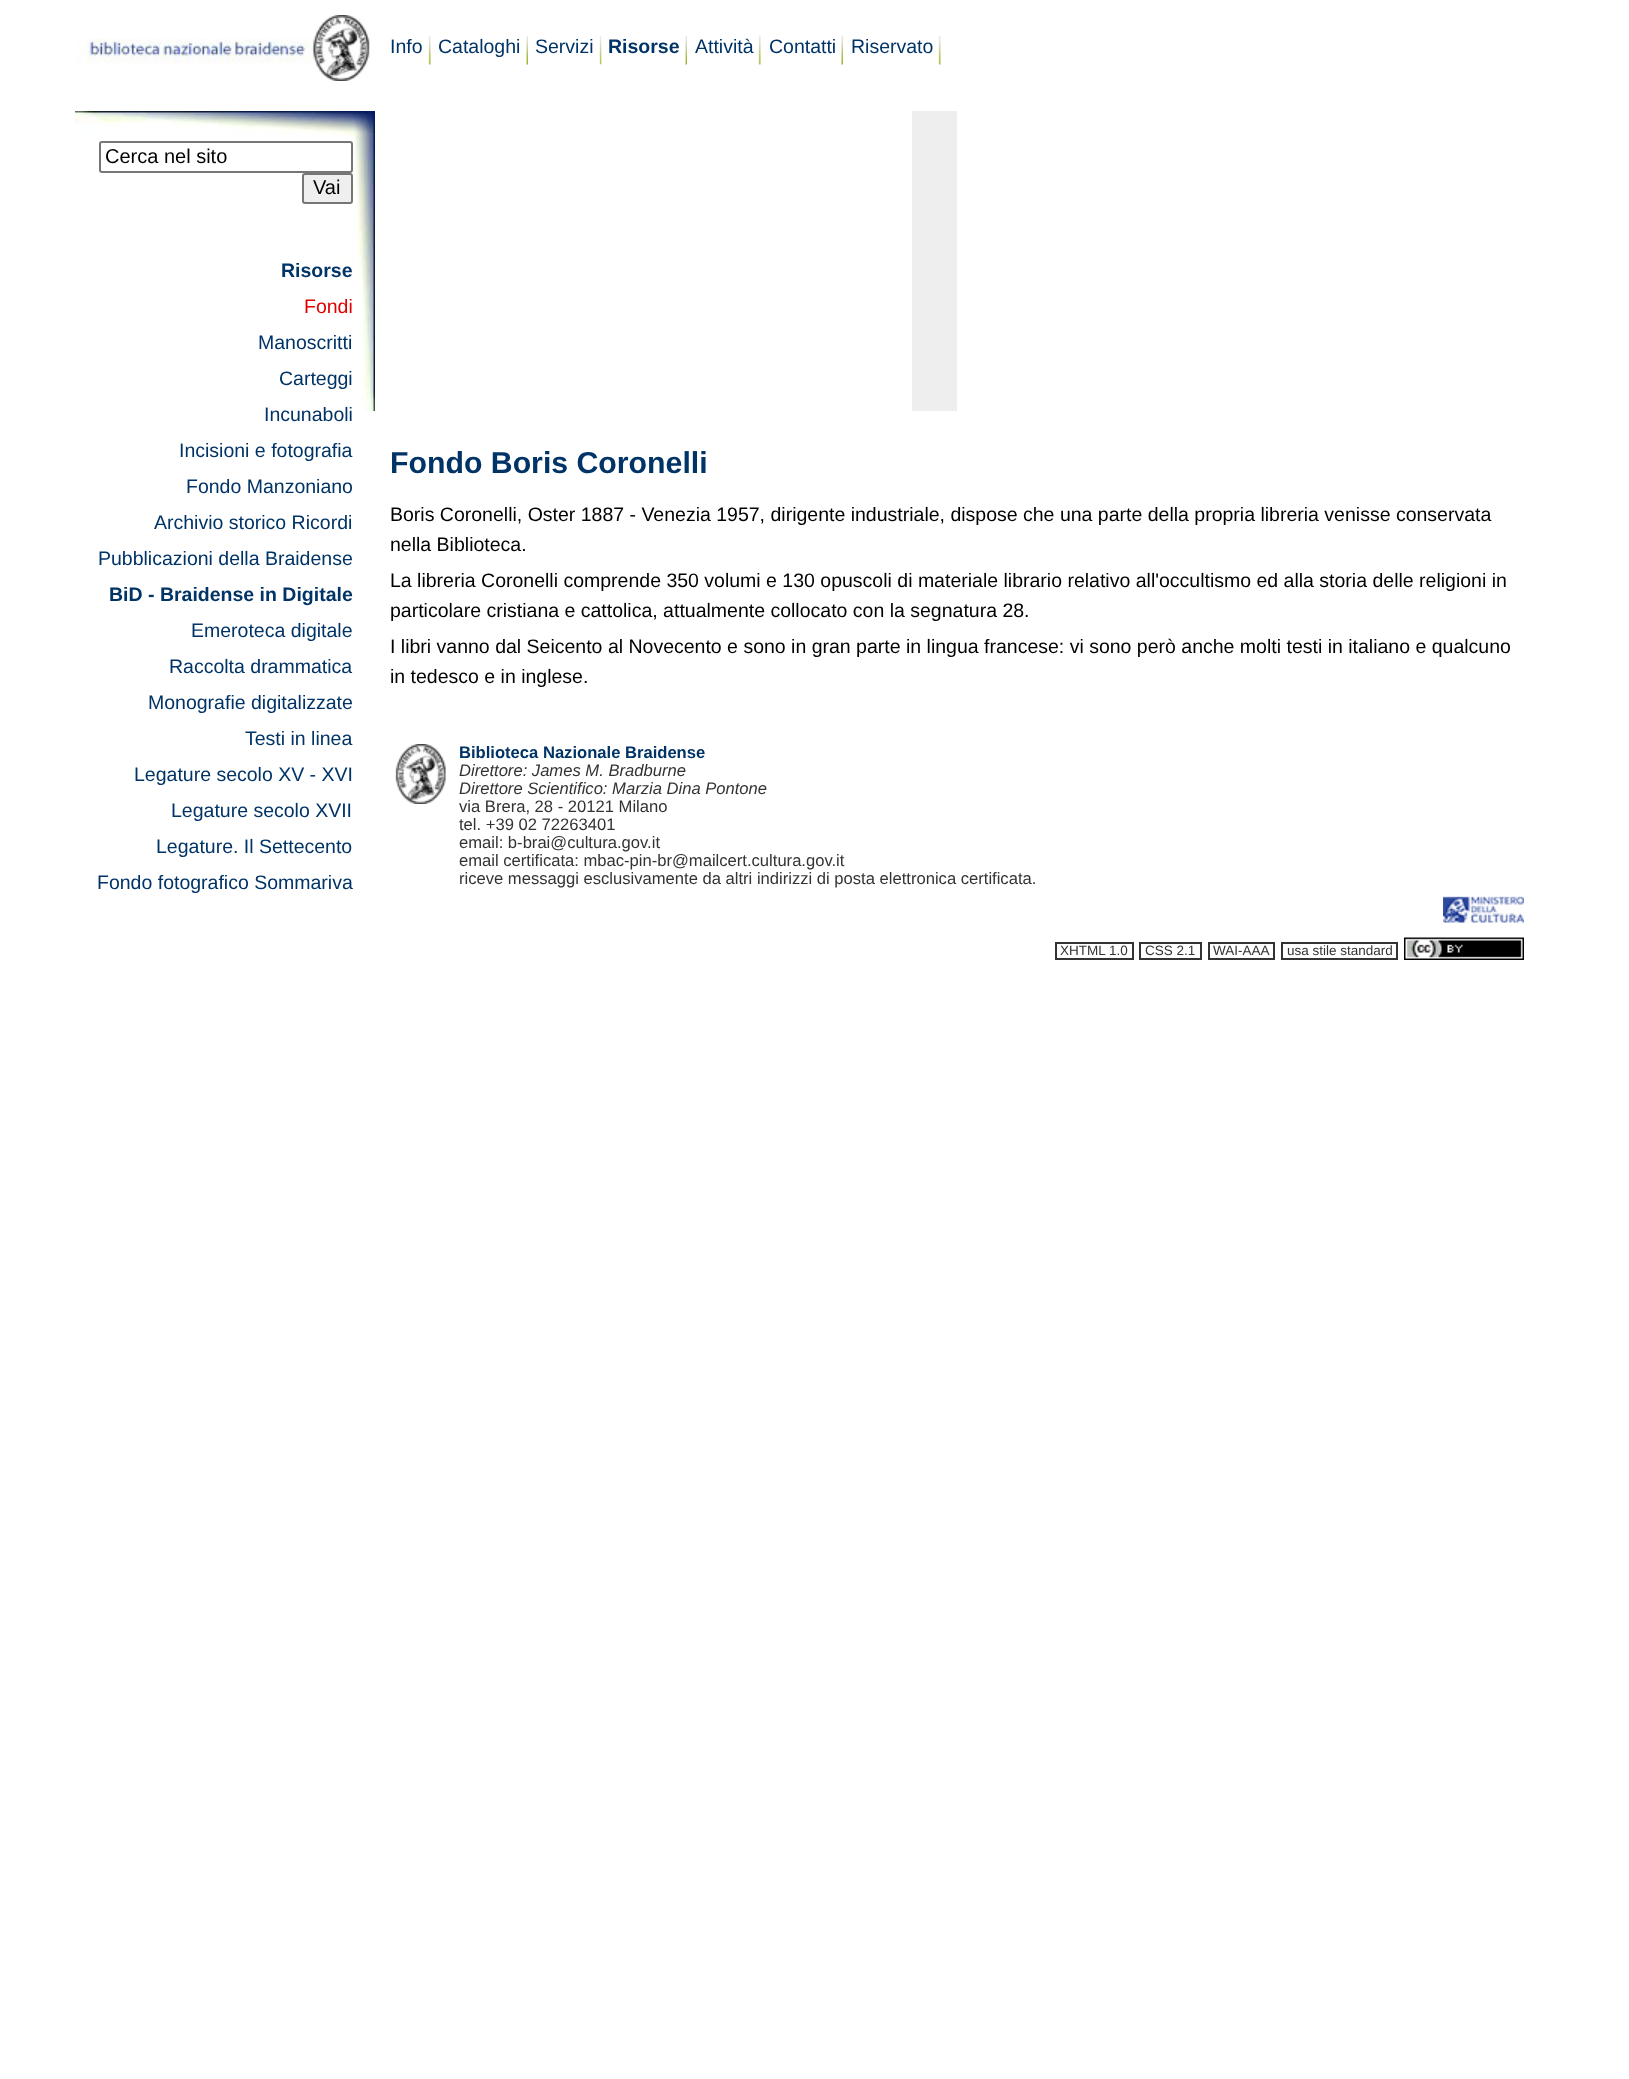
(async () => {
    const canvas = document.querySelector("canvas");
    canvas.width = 1629;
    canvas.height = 2079;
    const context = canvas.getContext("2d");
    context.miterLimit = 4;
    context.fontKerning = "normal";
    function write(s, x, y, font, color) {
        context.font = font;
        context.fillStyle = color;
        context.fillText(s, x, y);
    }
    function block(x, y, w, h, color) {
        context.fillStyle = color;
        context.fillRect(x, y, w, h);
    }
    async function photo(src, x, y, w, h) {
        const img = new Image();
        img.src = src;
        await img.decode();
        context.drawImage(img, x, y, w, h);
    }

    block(0, 0, 1629, 2079, "rgb(255, 255, 255)");
    await photo("media/1.png", 75, 15, 295, 66);
    await photo("media/2.png", 428, 36, 3, 29);
    write("Info", 390, 53, "19.5px Liberation Sans", "rgb(0, 51, 102)");
    await photo("media/3.png", 526, 36, 2, 29);
    write("Cataloghi", 438, 53, "19.5px Liberation Sans", "rgb(0, 51, 102)");
    await photo("media/4.png", 599, 36, 3, 29);
    write("Servizi", 535, 53, "19.5px Liberation Sans", "rgb(0, 51, 102)");
    await photo("media/5.png", 685, 36, 2, 29);
    write("Risorse", 608, 53, "bold 19.5px Liberation Sans", "rgb(0, 51, 102)");
    await photo("media/6.png", 758, 36, 3, 29);
    write("Attività", 695, 53, "19.5px Liberation Sans", "rgb(0, 51, 102)");
    await photo("media/7.png", 841, 36, 2, 29);
    write("Contatti", 769, 53, "19.5px Liberation Sans", "rgb(0, 51, 102)");
    await photo("media/6.png", 938, 36, 3, 29);
    write("Riservato", 851, 53, "19.5px Liberation Sans", "rgb(0, 51, 102)");
    await photo("media/8.png", 75, 111, 300, 300);
    context.fillStyle = "rgb(255, 255, 255)";
    context.beginPath();
    context.roundRect(100, 142, 252, 30, 2);
    context.fill();
    context.strokeStyle = "rgb(118, 118, 118)";
    context.lineWidth = 2;
    context.stroke();
    write("Cerca nel sito", 105, 163, "20px Liberation Sans", "rgb(0, 0, 0)");
    context.fillStyle = "rgb(239, 239, 239)";
    context.beginPath();
    context.roundRect(303, 174, 49, 29, 2);
    context.fill();
    context.stroke();
    write("Vai", 313, 194, "20px Liberation Sans", "rgb(0, 0, 0)");
    write("Risorse", 281, 277, "bold 19.5px Liberation Sans", "rgb(0, 51, 102)");
    write("Fondi", 304, 313, "19.5px Liberation Sans", "rgb(224, 0, 0)");
    write("Manoscritti", 258, 349, "19.5px Liberation Sans", "rgb(0, 51, 102)");
    write("Carteggi", 279, 385, "19.5px Liberation Sans", "rgb(0, 51, 102)");
    write("Incunaboli", 264, 421, "19.5px Liberation Sans", "rgb(0, 51, 102)");
    write("Incisioni e fotografia", 179, 457, "19.5px Liberation Sans", "rgb(0, 51, 102)");
    write("Fondo Manzoniano", 186, 493, "19.5px Liberation Sans", "rgb(0, 51, 102)");
    write("Archivio storico Ricordi", 154, 529, "19.5px Liberation Sans", "rgb(0, 51, 102)");
    write("Pubblicazioni della Braidense", 98, 565, "19.5px Liberation Sans", "rgb(0, 51, 102)");
    write("BiD - Braidense in Digitale", 109, 601, "bold 19.5px Liberation Sans", "rgb(0, 51, 102)");
    write("Emeroteca digitale", 191, 637, "19.5px Liberation Sans", "rgb(0, 51, 102)");
    write("Raccolta drammatica", 169, 673, "19.5px Liberation Sans", "rgb(0, 51, 102)");
    write("Monografie digitalizzate", 148, 709, "19.5px Liberation Sans", "rgb(0, 51, 102)");
    write("Testi in linea", 245, 745, "19.5px Liberation Sans", "rgb(0, 51, 102)");
    write("Legature secolo XV - XVI", 134, 781, "19.5px Liberation Sans", "rgb(0, 51, 102)");
    write("Legature secolo XVII", 171, 817, "19.5px Liberation Sans", "rgb(0, 51, 102)");
    write("Legature. Il Settecento", 156, 853, "19.5px Liberation Sans", "rgb(0, 51, 102)");
    write("Fondo fotografico Sommariva", 97, 889, "19.5px Liberation Sans", "rgb(0, 51, 102)");
    block(912, 111, 45, 300, "rgb(238, 238, 238)");
    write("Fondo Boris Coronelli", 390, 473, "bold 30.25px Liberation Sans", "rgb(0, 51, 102)");
    write("Boris Coronelli, Oster 1887 - Venezia 1957, dirigente industriale, dispose che una parte della propria libreria venisse conservata", 390, 521, "19.5px Liberation Sans", "rgb(0, 0, 0)");
    write("nella Biblioteca.", 390, 551, "19.5px Liberation Sans", "rgb(0, 0, 0)");
    write("La libreria Coronelli comprende 350 volumi e 130 opuscoli di materiale librario relativo all'occultismo ed alla storia delle religioni in", 390, 587, "19.5px Liberation Sans", "rgb(0, 0, 0)");
    write("particolare cristiana e cattolica, attualmente collocato con la segnatura 28.", 390, 617, "19.5px Liberation Sans", "rgb(0, 0, 0)");
    write("I libri vanno dal Seicento al Novecento e sono in gran parte in lingua francese: vi sono però anche molti testi in italiano e qualcuno", 390, 653, "19.5px Liberation Sans", "rgb(0, 0, 0)");
    write("in tedesco e in inglese.", 390, 683, "19.5px Liberation Sans", "rgb(0, 0, 0)");
    await photo("media/9.png", 395, 744, 51, 60);
    write("Biblioteca Nazionale Braidense", 459, 758, "bold 16.6px Liberation Sans", "rgb(0, 51, 102)");
    write("Direttore: James M. Bradburne", 459, 776, "italic 16.6px Liberation Sans", "rgb(51, 51, 51)");
    write("Direttore Scientifico: Marzia Dina Pontone", 459, 794, "italic 16.6px Liberation Sans", "rgb(51, 51, 51)");
    write("via Brera, 28 - 20121 Milano", 459, 812, "16.6px Liberation Sans", "rgb(51, 51, 51)");
    write("tel. +39 02 72263401", 459, 830, "16.6px Liberation Sans", "rgb(51, 51, 51)");
    write("email: b-brai@cultura.gov.it", 459, 848, "16.6px Liberation Sans", "rgb(51, 51, 51)");
    write("email certificata: mbac-pin-br@mailcert.cultura.gov.it", 459, 866, "16.6px Liberation Sans", "rgb(51, 51, 51)");
    write("riceve messaggi esclusivamente da altri indirizzi di posta elettronica certificata.", 459, 884, "16.6px Liberation Sans", "rgb(51, 51, 51)");
    await photo("media/10.png", 1443, 896, 81, 27);
    context.strokeStyle = "rgb(51, 51, 51)";
    context.strokeRect(1056, 943, 77, 16);
    write("XHTML 1.0", 1060, 955, "13.5px Liberation Sans", "rgb(51, 51, 51)");
    context.strokeRect(1140, 943, 61, 16);
    write("CSS 2.1", 1145, 955, "13.5px Liberation Sans", "rgb(51, 51, 51)");
    context.strokeRect(1209, 943, 65, 16);
    write("WAI-AAA", 1213, 955, "13.5px Liberation Sans", "rgb(51, 51, 51)");
    context.strokeRect(1282, 943, 115, 16);
    write("usa stile standard", 1287, 955, "13.5px Liberation Sans", "rgb(51, 51, 51)");
    await photo("media/11.png", 1404, 937, 120, 23);
})();
